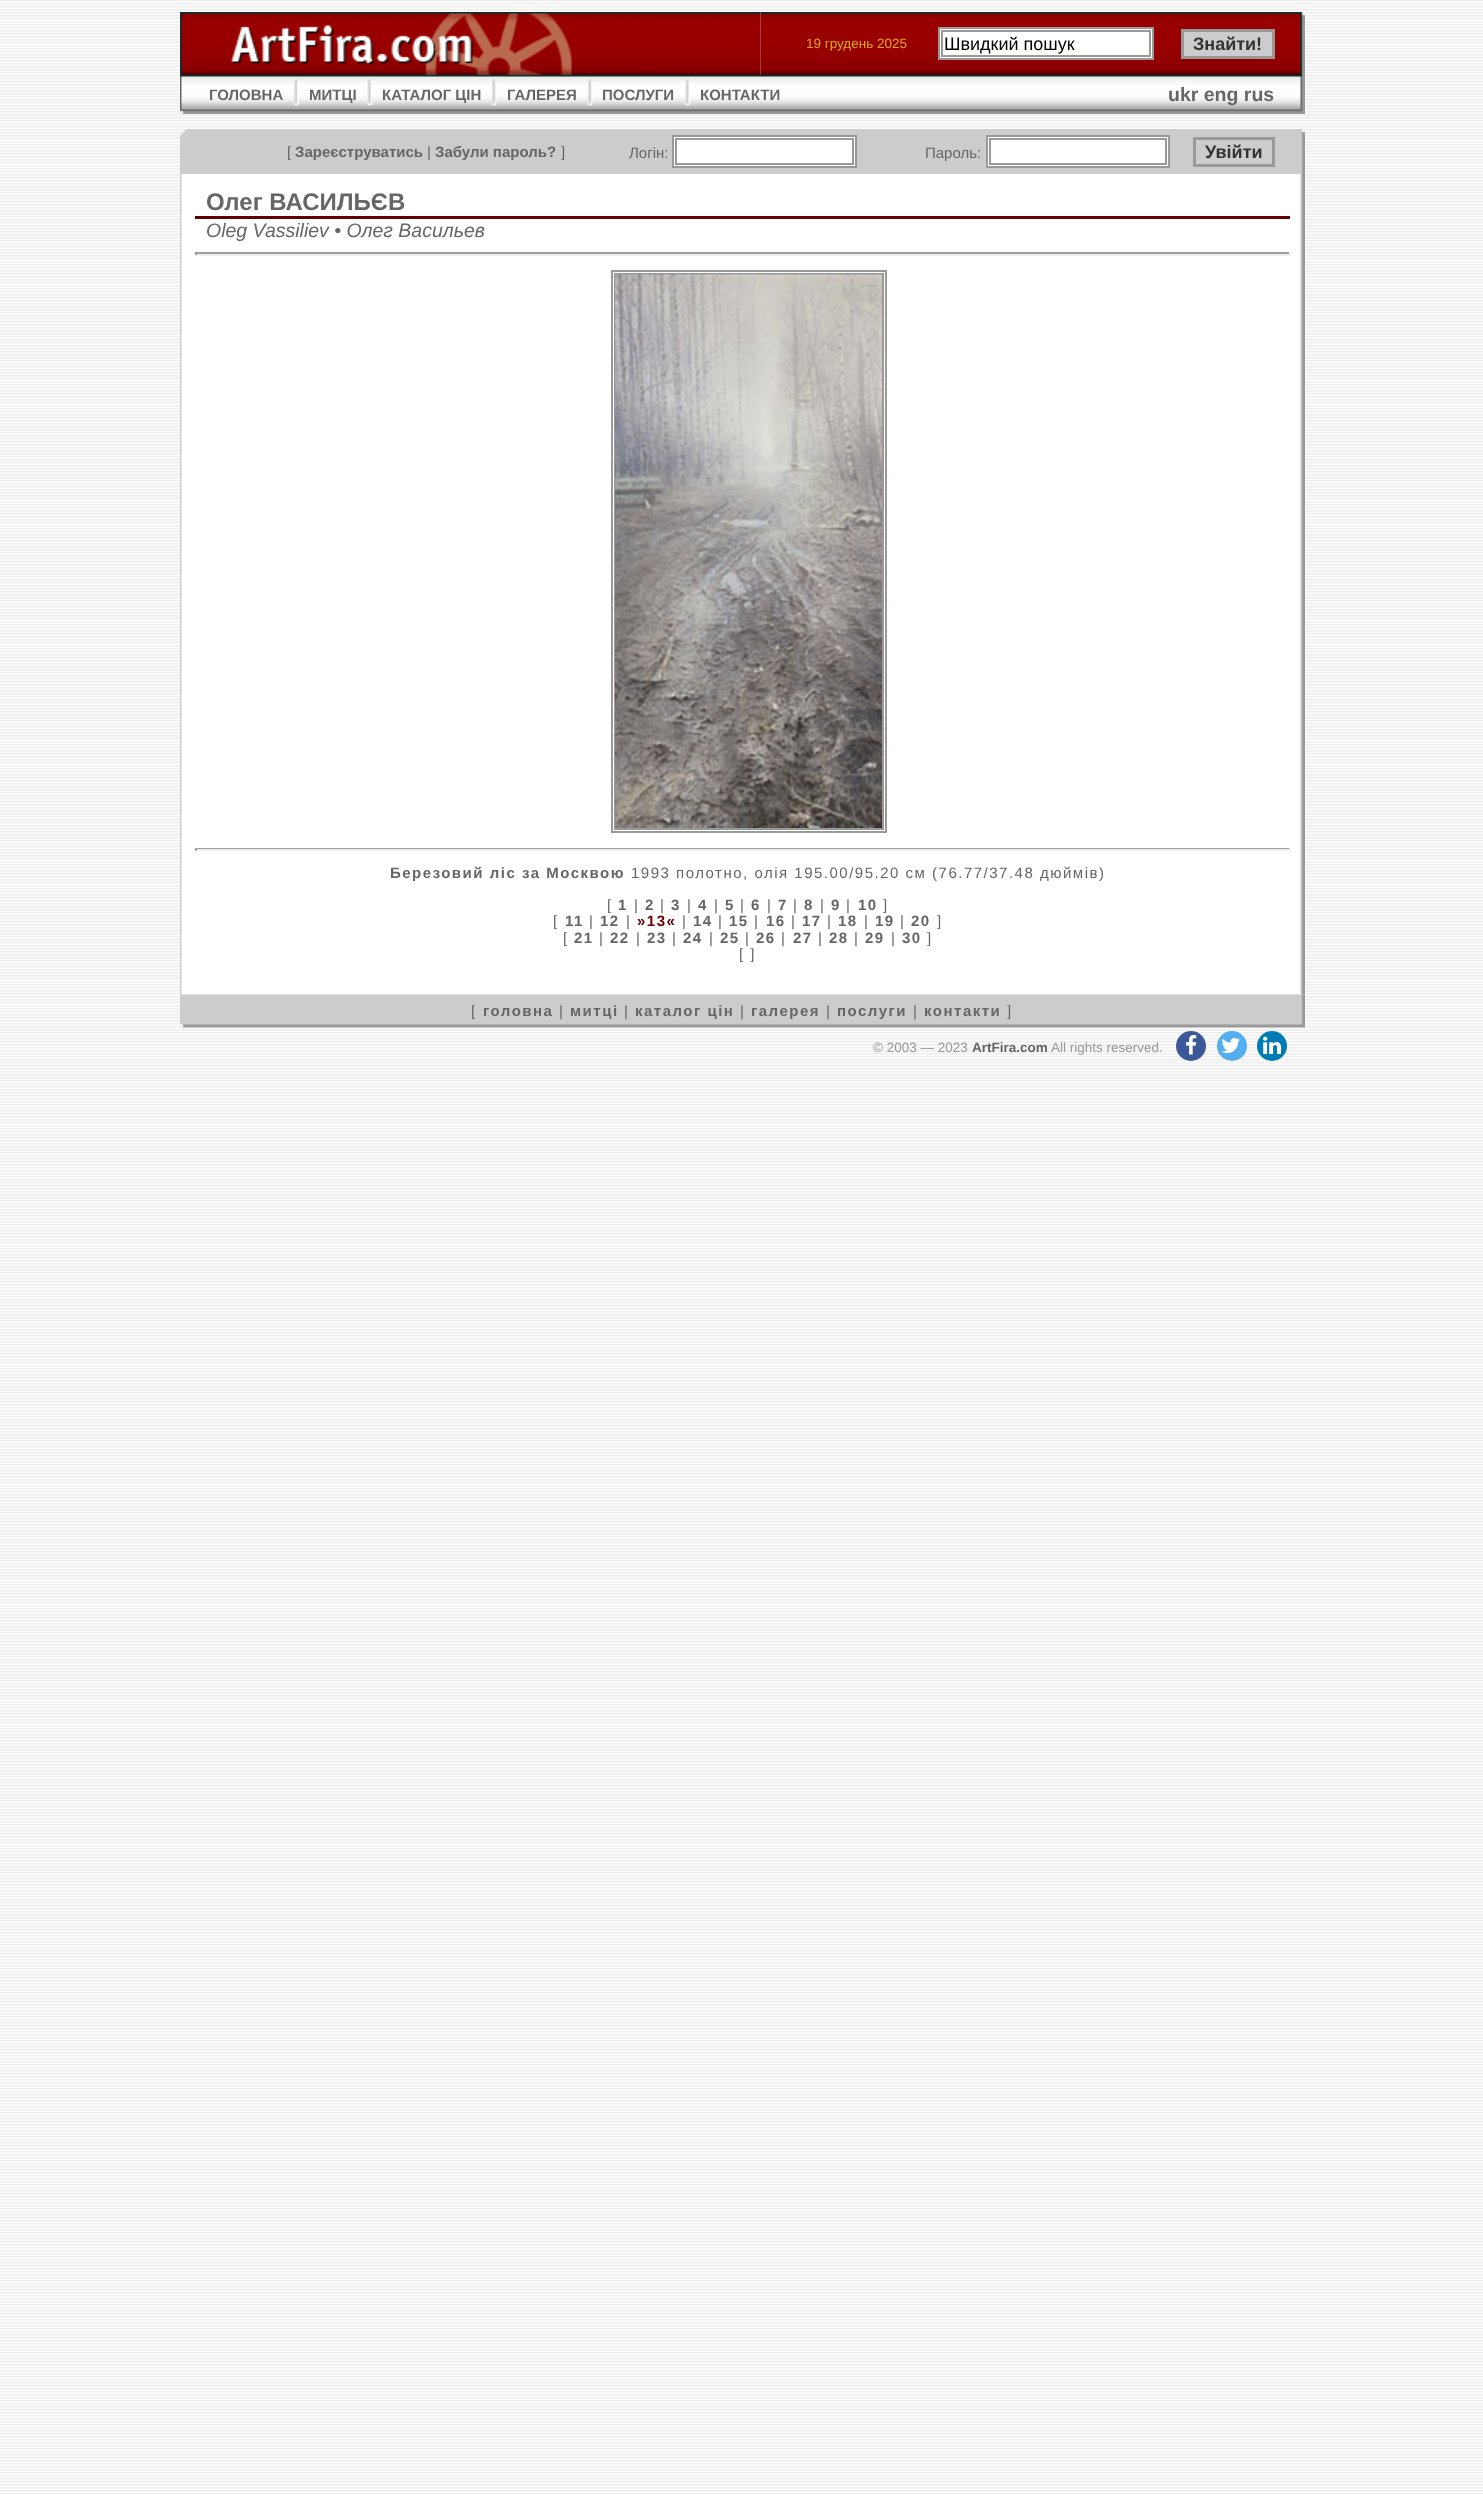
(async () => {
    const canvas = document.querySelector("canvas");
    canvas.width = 1483;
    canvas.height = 2494;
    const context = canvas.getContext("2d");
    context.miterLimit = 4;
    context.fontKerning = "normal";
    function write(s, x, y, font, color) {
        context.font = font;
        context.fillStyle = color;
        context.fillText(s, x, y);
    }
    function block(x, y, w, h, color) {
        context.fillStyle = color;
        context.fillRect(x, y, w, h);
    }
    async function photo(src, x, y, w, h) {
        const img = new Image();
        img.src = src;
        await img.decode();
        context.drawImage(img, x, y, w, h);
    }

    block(0, 0, 1483, 2494, "rgb(255, 255, 255)");
    await photo("media/1.png", 0, 0, 1483, 2494);
    await photo("media/3.png", 760, 12, 515, 63);
    await photo("media/2.png", 180, 12, 581, 63);
    write("19 грудень 2025", 806, 48, "13.5px Liberation Sans", "rgb(218, 165, 32)");
    context.fillStyle = "rgb(255, 255, 255)";
    context.beginPath();
    context.rect(939, 28, 214, 31);
    context.fill();
    context.strokeStyle = "rgb(153, 153, 153)";
    context.lineWidth = 2;
    context.stroke();
    context.strokeRect(942, 31, 208, 25);
    write("Швидкий пошук", 944, 50, "18px Liberation Sans", "rgb(0, 0, 0)");
    context.fillStyle = "rgb(204, 204, 204)";
    context.beginPath();
    context.rect(1182.5, 30.5, 91, 27);
    context.fill();
    context.lineWidth = 3;
    context.stroke();
    write("Знайти!", 1193, 50, "bold 18px Liberation Sans", "rgb(51, 51, 51)");
    await photo("media/4.png", 1275, 12, 30, 63);
    await photo("media/5.png", 180, 75, 1125, 39);
    await photo("media/6.png", 180, 76, 4, 38);
    write("ГОЛОВНА", 209, 100, "bold 15px Liberation Sans", "rgb(102, 102, 102)");
    await photo("media/7.png", 293, 79, 6, 27);
    write("МИТЦІ", 309, 100, "bold 15px Liberation Sans", "rgb(102, 102, 102)");
    await photo("media/8.png", 367, 79, 6, 27);
    write("КАТАЛОГ ЦІН", 382, 100, "bold 15px Liberation Sans", "rgb(102, 102, 102)");
    await photo("media/9.png", 491, 79, 6, 27);
    write("ГАЛЕРЕЯ", 507, 100, "bold 15px Liberation Sans", "rgb(102, 102, 102)");
    await photo("media/7.png", 587, 79, 6, 27);
    write("ПОСЛУГИ", 602, 100, "bold 15px Liberation Sans", "rgb(102, 102, 102)");
    await photo("media/10.png", 685, 79, 6, 27);
    write("КОНТАКТИ", 700, 100, "bold 15px Liberation Sans", "rgb(102, 102, 102)");
    write("ukr eng rus", 1168, 101, "bold 19.5px Liberation Sans", "rgb(102, 102, 102)");
    await photo("media/11.png", 1300, 75, 5, 37);
    await photo("media/12.png", 180, 129, 30, 45);
    block(210, 129, 1065, 45, "rgb(204, 204, 204)");
    write("[", 287, 157, "15px Liberation Sans", "rgb(102, 102, 102)");
    write("Зареєструватись", 295, 157, "bold 15px Liberation Sans", "rgb(102, 102, 102)");
    write("|", 427, 157, "15px Liberation Sans", "rgb(102, 102, 102)");
    write("Забули пароль?", 435, 157, "bold 15px Liberation Sans", "rgb(102, 102, 102)");
    write("]", 561, 157, "15px Liberation Sans", "rgb(102, 102, 102)");
    write("Логін:", 629, 158, "15px Liberation Sans", "rgb(102, 102, 102)");
    context.fillStyle = "rgb(255, 255, 255)";
    context.beginPath();
    context.rect(673, 136, 183, 31);
    context.fill();
    context.lineWidth = 2;
    context.stroke();
    context.strokeRect(676, 139, 177, 25);
    write("Пароль:", 925, 158, "15px Liberation Sans", "rgb(102, 102, 102)");
    context.fillStyle = "rgb(255, 255, 255)";
    context.beginPath();
    context.rect(987, 136, 182, 31);
    context.fill();
    context.stroke();
    context.strokeRect(990, 139, 176, 25);
    context.lineWidth = 3;
    context.strokeRect(1194.5, 138.5, 79, 27);
    write("Увійти", 1205, 158, "bold 18px Liberation Sans", "rgb(51, 51, 51)");
    await photo("media/13.png", 1275, 129, 30, 45);
    await photo("media/14.png", 180, 174, 1125, 821);
    block(195, 216, 1095, 3, "rgb(102, 0, 0)");
    write("Олег ВАСИЛЬЄВ", 206, 210, "bold 24px Liberation Sans", "rgb(102, 102, 102)");
    write("Oleg Vassiliev • Олег Васильев", 206, 237, "italic 19.5px Liberation Sans", "rgb(102, 102, 102)");
    block(195, 252, 1095, 2, "rgb(159, 159, 159)");
    block(1289, 252, 2, 3, "rgb(238, 238, 238)");
    block(195, 254, 1095, 2, "rgb(238, 238, 238)");
    block(195, 252, 2, 3, "rgb(159, 159, 159)");
    context.lineWidth = 2;
    context.strokeRect(612, 271, 274, 561);
    context.strokeRect(615, 274, 268, 555);
    await photo("media/15.png", 615, 274, 267, 554);
    block(195, 848, 1095, 1, "rgb(159, 159, 159)");
    block(1289, 848, 2, 3, "rgb(238, 238, 238)");
    block(195, 849, 1095, 2, "rgb(238, 238, 238)");
    block(195, 848, 2, 3, "rgb(159, 159, 159)");
    context.letterSpacing = "1.5px";
    write("Березовий ліс за Москвою", 390, 878, "bold 15px Liberation Sans", "rgb(102, 102, 102)");
    write("1993 полотно, олія 195.00/95.20 см (76.77/37.48 дюймів)", 631, 878, "15px Liberation Sans", "rgb(102, 102, 102)");
    write("[", 607, 910, "15px Liberation Sans", "rgb(102, 102, 102)");
    write("1", 618, 910, "bold 15px Liberation Sans", "rgb(102, 102, 102)");
    write("|", 634, 910, "15px Liberation Sans", "rgb(102, 102, 102)");
    write("2", 645, 910, "bold 15px Liberation Sans", "rgb(102, 102, 102)");
    write("|", 660, 910, "15px Liberation Sans", "rgb(102, 102, 102)");
    write("3", 671, 910, "bold 15px Liberation Sans", "rgb(102, 102, 102)");
    write("|", 687, 910, "15px Liberation Sans", "rgb(102, 102, 102)");
    write("4", 698, 910, "bold 15px Liberation Sans", "rgb(102, 102, 102)");
    write("|", 714, 910, "15px Liberation Sans", "rgb(102, 102, 102)");
    write("5", 725, 910, "bold 15px Liberation Sans", "rgb(102, 102, 102)");
    write("|", 740, 910, "15px Liberation Sans", "rgb(102, 102, 102)");
    write("6", 751, 910, "bold 15px Liberation Sans", "rgb(102, 102, 102)");
    write("|", 767, 910, "15px Liberation Sans", "rgb(102, 102, 102)");
    write("7", 778, 910, "bold 15px Liberation Sans", "rgb(102, 102, 102)");
    write("|", 793, 910, "15px Liberation Sans", "rgb(102, 102, 102)");
    write("8", 804, 910, "bold 15px Liberation Sans", "rgb(102, 102, 102)");
    write("|", 820, 910, "15px Liberation Sans", "rgb(102, 102, 102)");
    write("9", 831, 910, "bold 15px Liberation Sans", "rgb(102, 102, 102)");
    write("|", 846, 910, "15px Liberation Sans", "rgb(102, 102, 102)");
    write("10", 858, 910, "bold 15px Liberation Sans", "rgb(102, 102, 102)");
    write("]", 883, 910, "15px Liberation Sans", "rgb(102, 102, 102)");
    write("[", 553, 926, "15px Liberation Sans", "rgb(102, 102, 102)");
    write("11", 565, 926, "bold 15px Liberation Sans", "rgb(102, 102, 102)");
    write("|", 589, 926, "15px Liberation Sans", "rgb(102, 102, 102)");
    write("12", 600, 926, "bold 15px Liberation Sans", "rgb(102, 102, 102)");
    write("|", 626, 926, "15px Liberation Sans", "rgb(102, 102, 102)");
    write("»13«", 637, 926, "bold 15px Liberation Sans", "rgb(102, 0, 0)");
    write("|", 682, 926, "15px Liberation Sans", "rgb(102, 102, 102)");
    write("14", 693, 926, "bold 15px Liberation Sans", "rgb(102, 102, 102)");
    write("|", 718, 926, "15px Liberation Sans", "rgb(102, 102, 102)");
    write("15", 729, 926, "bold 15px Liberation Sans", "rgb(102, 102, 102)");
    write("|", 754, 926, "15px Liberation Sans", "rgb(102, 102, 102)");
    write("16", 766, 926, "bold 15px Liberation Sans", "rgb(102, 102, 102)");
    write("|", 791, 926, "15px Liberation Sans", "rgb(102, 102, 102)");
    write("17", 802, 926, "bold 15px Liberation Sans", "rgb(102, 102, 102)");
    write("|", 827, 926, "15px Liberation Sans", "rgb(102, 102, 102)");
    write("18", 838, 926, "bold 15px Liberation Sans", "rgb(102, 102, 102)");
    write("|", 864, 926, "15px Liberation Sans", "rgb(102, 102, 102)");
    write("19", 875, 926, "bold 15px Liberation Sans", "rgb(102, 102, 102)");
    write("|", 900, 926, "15px Liberation Sans", "rgb(102, 102, 102)");
    write("20", 911, 926, "bold 15px Liberation Sans", "rgb(102, 102, 102)");
    write("]", 937, 926, "15px Liberation Sans", "rgb(102, 102, 102)");
    write("[", 563, 943, "15px Liberation Sans", "rgb(102, 102, 102)");
    write("21", 574, 943, "bold 15px Liberation Sans", "rgb(102, 102, 102)");
    write("|", 599, 943, "15px Liberation Sans", "rgb(102, 102, 102)");
    write("22", 610, 943, "bold 15px Liberation Sans", "rgb(102, 102, 102)");
    write("|", 636, 943, "15px Liberation Sans", "rgb(102, 102, 102)");
    write("23", 647, 943, "bold 15px Liberation Sans", "rgb(102, 102, 102)");
    write("|", 672, 943, "15px Liberation Sans", "rgb(102, 102, 102)");
    write("24", 683, 943, "bold 15px Liberation Sans", "rgb(102, 102, 102)");
    write("|", 709, 943, "15px Liberation Sans", "rgb(102, 102, 102)");
    write("25", 720, 943, "bold 15px Liberation Sans", "rgb(102, 102, 102)");
    write("|", 745, 943, "15px Liberation Sans", "rgb(102, 102, 102)");
    write("26", 756, 943, "bold 15px Liberation Sans", "rgb(102, 102, 102)");
    write("|", 781, 943, "15px Liberation Sans", "rgb(102, 102, 102)");
    write("27", 793, 943, "bold 15px Liberation Sans", "rgb(102, 102, 102)");
    write("|", 818, 943, "15px Liberation Sans", "rgb(102, 102, 102)");
    write("28", 829, 943, "bold 15px Liberation Sans", "rgb(102, 102, 102)");
    write("|", 854, 943, "15px Liberation Sans", "rgb(102, 102, 102)");
    write("29", 865, 943, "bold 15px Liberation Sans", "rgb(102, 102, 102)");
    write("|", 891, 943, "15px Liberation Sans", "rgb(102, 102, 102)");
    write("30", 902, 943, "bold 15px Liberation Sans", "rgb(102, 102, 102)");
    write("]", 927, 943, "15px Liberation Sans", "rgb(102, 102, 102)");
    write("[ ]", 739, 959, "15px Liberation Sans", "rgb(102, 102, 102)");
    await photo("media/16.png", 180, 994, 30, 34);
    await photo("media/17.png", 210, 994, 1065, 34);
    write("[", 471, 1016, "15px Liberation Sans", "rgb(102, 102, 102)");
    write("головна", 483, 1016, "bold 15px Liberation Sans", "rgb(102, 102, 102)");
    write("|", 559, 1016, "15px Liberation Sans", "rgb(102, 102, 102)");
    write("митці", 570, 1016, "bold 15px Liberation Sans", "rgb(102, 102, 102)");
    write("|", 624, 1016, "15px Liberation Sans", "rgb(102, 102, 102)");
    write("каталог цін", 635, 1016, "bold 15px Liberation Sans", "rgb(102, 102, 102)");
    write("|", 740, 1016, "15px Liberation Sans", "rgb(102, 102, 102)");
    write("галерея", 751, 1016, "bold 15px Liberation Sans", "rgb(102, 102, 102)");
    write("|", 826, 1016, "15px Liberation Sans", "rgb(102, 102, 102)");
    write("послуги", 837, 1016, "bold 15px Liberation Sans", "rgb(102, 102, 102)");
    write("|", 913, 1016, "15px Liberation Sans", "rgb(102, 102, 102)");
    write("контакти", 924, 1016, "bold 15px Liberation Sans", "rgb(102, 102, 102)");
    write("]", 1007, 1016, "15px Liberation Sans", "rgb(102, 102, 102)");
    await photo("media/18.png", 1275, 994, 30, 34);
    context.letterSpacing = "0px";
    write("© 2003 — 2023", 873, 1052, "13.5px Liberation Sans", "rgb(153, 153, 153)");
    write("ArtFira.com", 972, 1052, "bold 13.5px Liberation Sans", "rgb(102, 102, 102)");
    write("All rights reserved.", 1051, 1052, "13.5px Liberation Sans", "rgb(153, 153, 153)");
    context.fillStyle = "rgb(59, 89, 152)";
    context.beginPath();
    context.arc(1191, 1046, 15, 0, Math.PI * 2);
    context.fill();
    await photo("media/19.png", 1186, 1035, 11, 20);
    context.fillStyle = "rgb(85, 172, 238)";
    context.beginPath();
    context.arc(1232, 1046, 15, 0, Math.PI * 2);
    context.fill();
    await photo("media/20.png", 1221, 1038, 19, 15);
    context.fillStyle = "rgb(0, 123, 181)";
    context.beginPath();
    context.arc(1272, 1046, 15, 0, Math.PI * 2);
    context.fill();
    await photo("media/21.png", 1263, 1036, 18, 18);
})();
